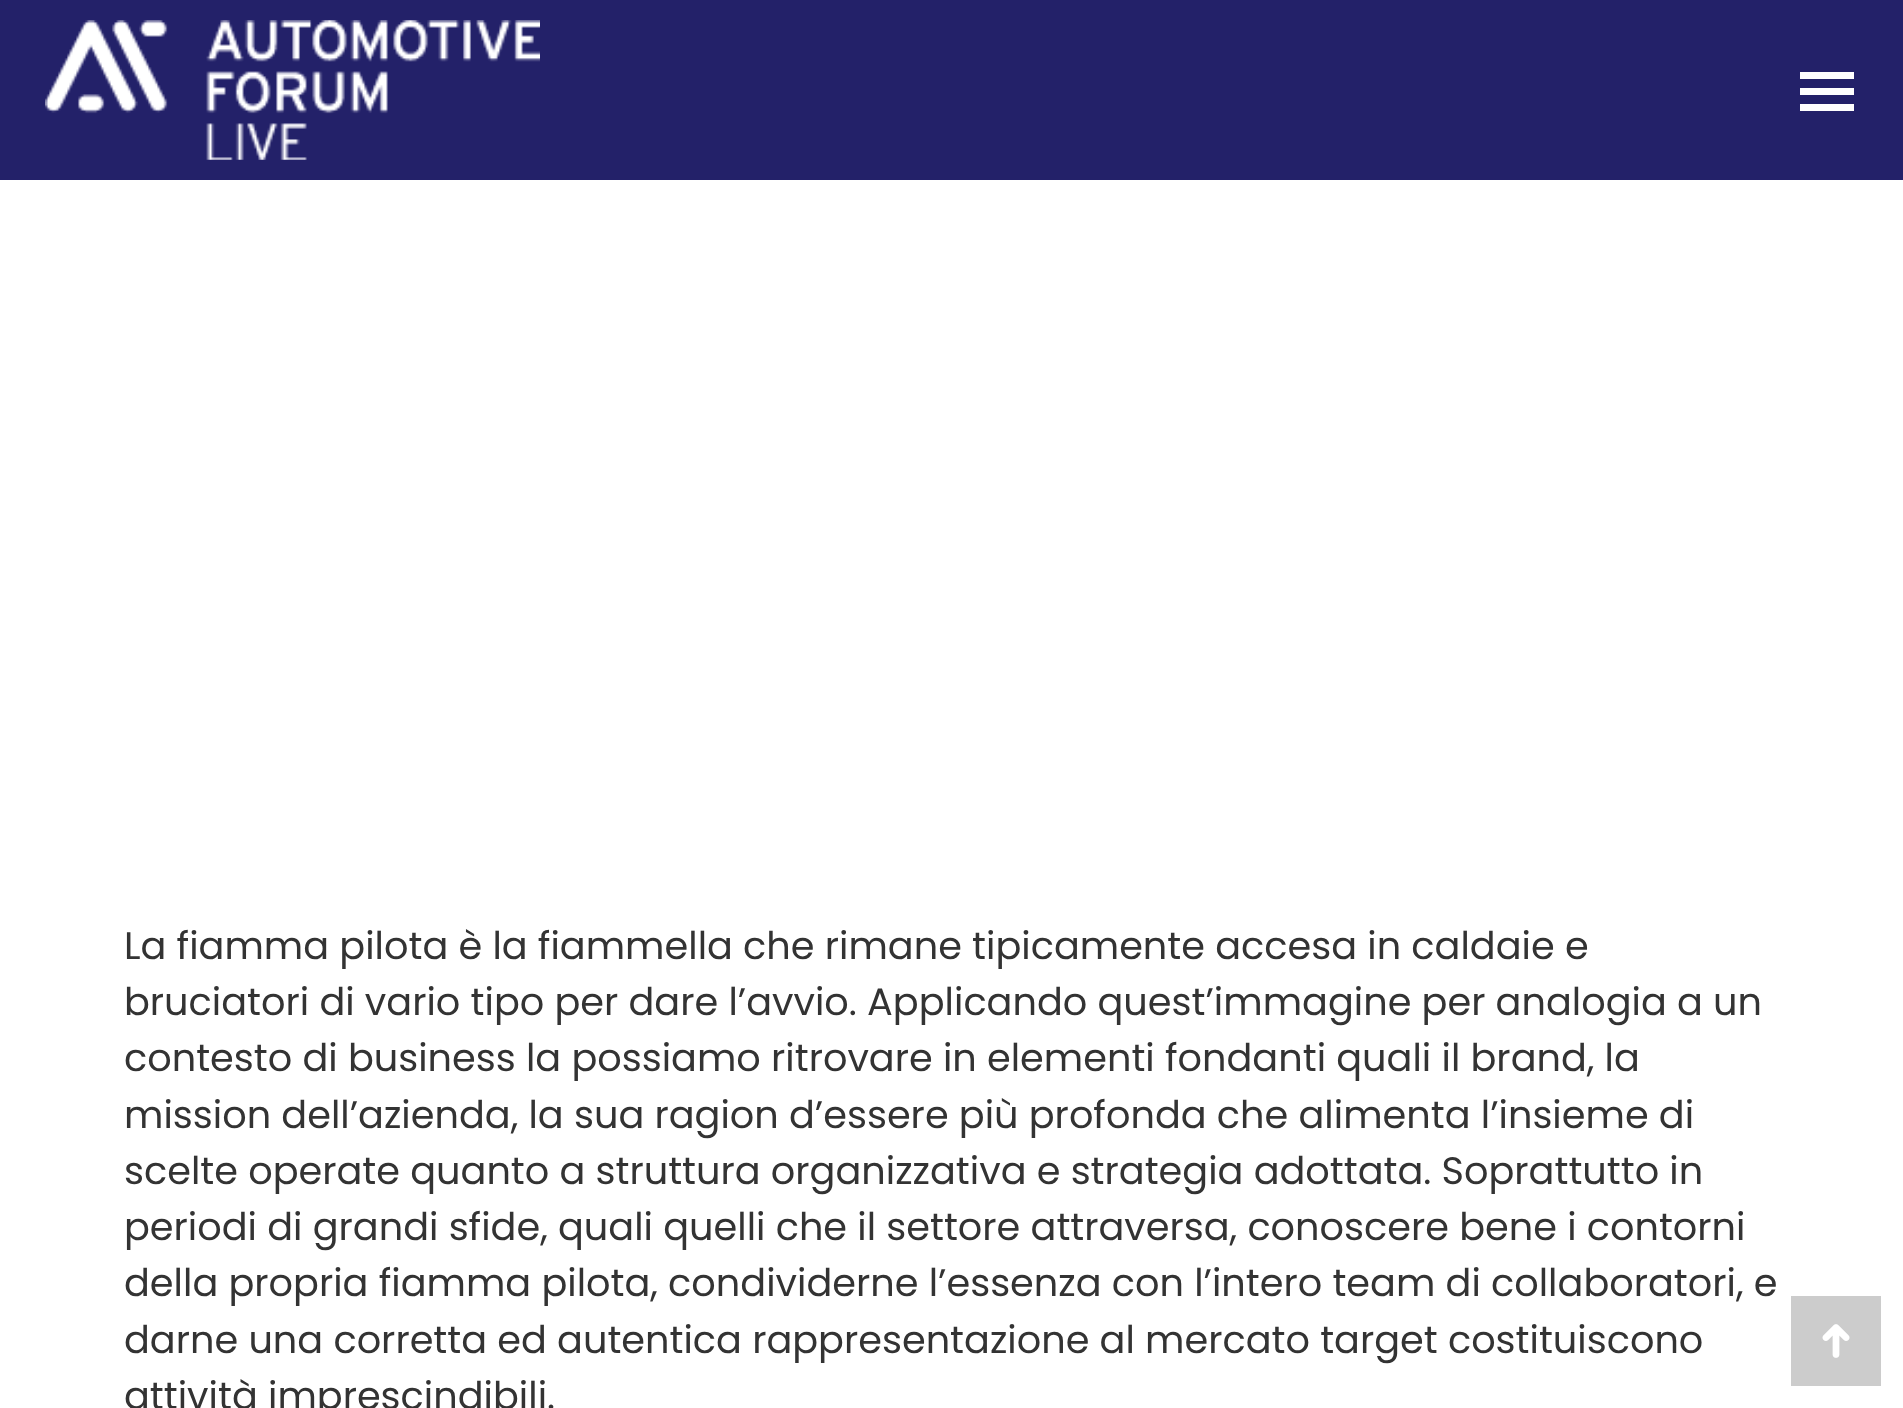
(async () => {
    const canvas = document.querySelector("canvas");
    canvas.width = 1903;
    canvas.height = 1408;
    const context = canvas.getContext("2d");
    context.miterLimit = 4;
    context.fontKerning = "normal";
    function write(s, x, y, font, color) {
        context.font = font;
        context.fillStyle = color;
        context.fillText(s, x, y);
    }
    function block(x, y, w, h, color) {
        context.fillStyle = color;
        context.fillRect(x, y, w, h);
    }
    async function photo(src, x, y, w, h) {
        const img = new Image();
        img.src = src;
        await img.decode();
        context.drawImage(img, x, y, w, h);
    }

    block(0, 0, 1903, 1408, "rgb(255, 255, 255)");
    block(0, 0, 1903, 180, "rgb(35, 33, 105)");
    await photo("media/1.png", 45, 20, 495, 140);
    block(1800, 72, 54, 7, "rgb(255, 255, 255)");
    block(1800, 88, 54, 7, "rgb(255, 255, 255)");
    block(1800, 104, 54, 7, "rgb(255, 255, 255)");
    write("La fiamma pilota è la fiammella che rimane tipicamente accesa in caldaie e", 124, 959, "38.25px Poppins", "rgb(51, 51, 51)");
    write("bruciatori di vario tipo per dare l’avvio. Applicando quest’immagine per analogia a un", 124, 1015, "38.25px Poppins", "rgb(51, 51, 51)");
    write("contesto di business la possiamo ritrovare in elementi fondanti quali il brand, la", 124, 1071, "38.25px Poppins", "rgb(51, 51, 51)");
    write("mission dell’azienda, la sua ragion d’essere più profonda che alimenta l’insieme di", 124, 1128, "38.25px Poppins", "rgb(51, 51, 51)");
    write("scelte operate quanto a struttura organizzativa e strategia adottata. Soprattutto in", 124, 1184, "38.25px Poppins", "rgb(51, 51, 51)");
    write("periodi di grandi sfide, quali quelli che il settore attraversa, conoscere bene i contorni", 124, 1240, "38.25px Poppins", "rgb(51, 51, 51)");
    write("della propria fiamma pilota, condividerne l’essenza con l’intero team di collaboratori, e", 124, 1296, "38.25px Poppins", "rgb(51, 51, 51)");
    write("darne una corretta ed autentica rappresentazione al mercato target costituiscono", 124, 1353, "38.25px Poppins", "rgb(51, 51, 51)");
    write("attività imprescindibili.", 124, 1409, "38.25px Poppins", "rgb(51, 51, 51)");
    block(1791, 1296, 90, 90, "rgb(204, 204, 204)");
    await photo("media/2.png", 1822, 1324, 28, 34);
})();
